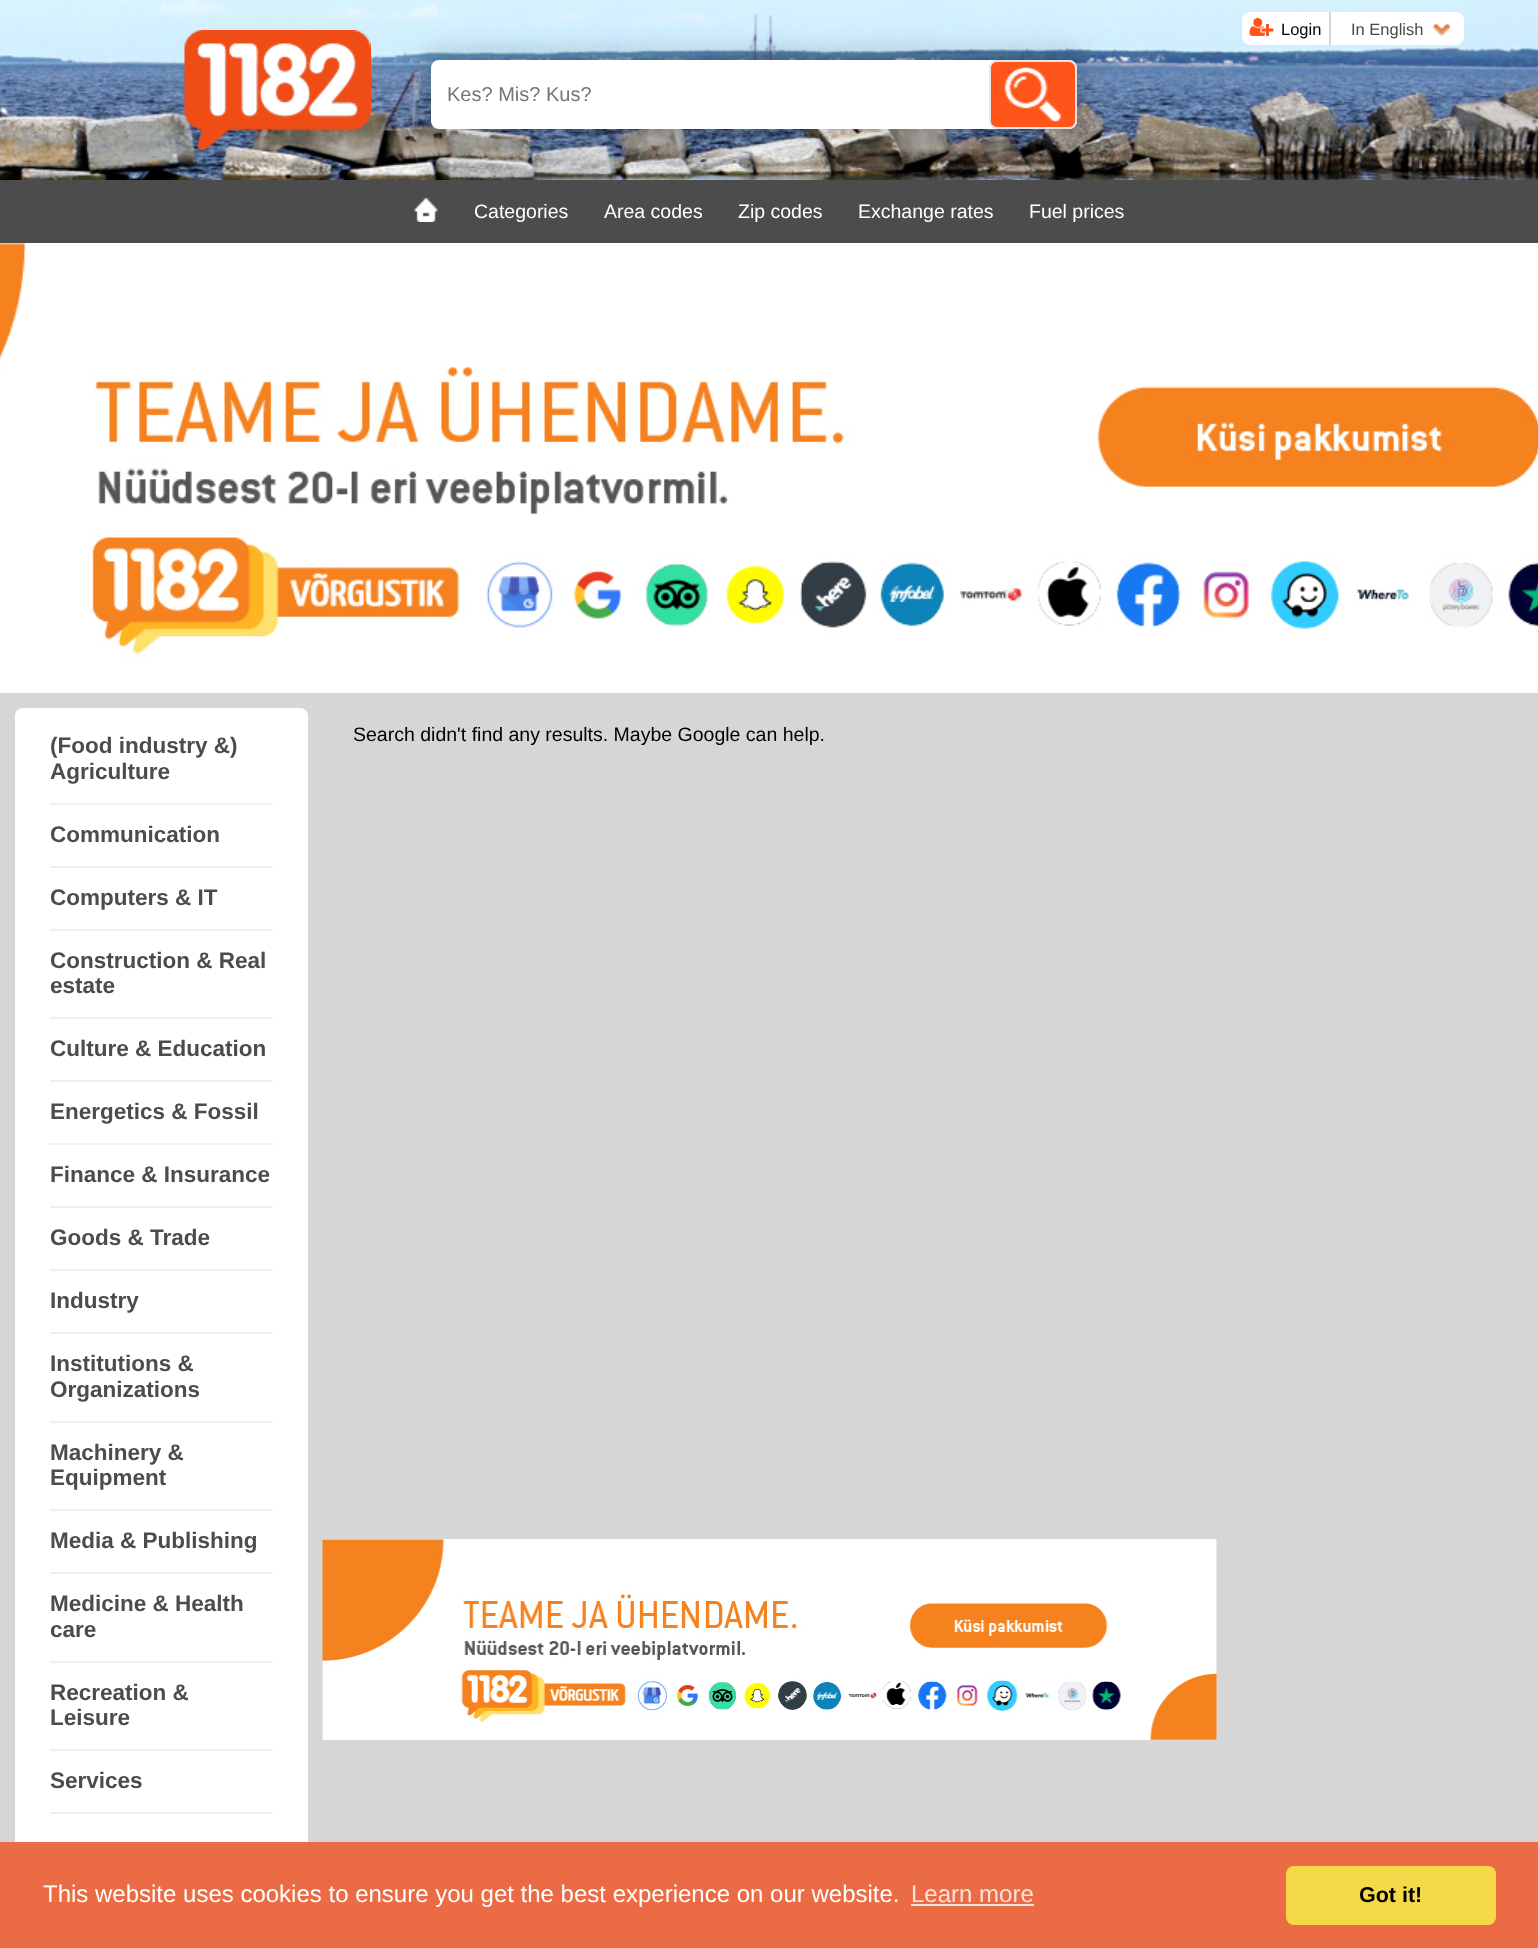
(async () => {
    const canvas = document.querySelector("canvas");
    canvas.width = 1538;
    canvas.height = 1948;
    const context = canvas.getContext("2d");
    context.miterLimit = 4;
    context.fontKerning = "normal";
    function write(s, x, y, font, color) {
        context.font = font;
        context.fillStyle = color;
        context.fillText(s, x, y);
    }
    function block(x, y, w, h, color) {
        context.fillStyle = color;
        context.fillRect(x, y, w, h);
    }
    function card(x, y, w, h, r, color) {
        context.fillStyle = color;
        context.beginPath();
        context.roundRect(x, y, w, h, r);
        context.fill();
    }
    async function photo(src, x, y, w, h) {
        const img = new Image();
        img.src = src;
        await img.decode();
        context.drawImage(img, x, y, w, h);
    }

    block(0, 0, 1538, 1948, "rgb(76, 76, 76)");
    block(0, 693, 1538, 1149, "rgb(214, 214, 214)");
    await photo("media/3.png", 0, 0, 1538, 180);
    card(1242, 12, 222, 33, 8, "rgb(255, 255, 255)");
    block(1329, 12, 2, 33, "rgb(214, 214, 214)");
    await photo("media/1.png", 1249, 18, 25, 18);
    write("Login", 1281, 35, "16.5px Liberation Sans", "rgb(0, 0, 0)");
    await photo("media/2.png", 1432, 23, 19, 14);
    write("In English", 1351, 35, "16.5px Liberation Sans", "rgb(75, 71, 70)");
    await photo("media/4.png", 184, 30, 187, 120);
    context.fillStyle = "rgba(0, 0, 0, 0.2)";
    context.filter = "blur(13px)";
    context.beginPath();
    context.roundRect(425, 54, 658, 81, 14);
    context.fill();
    context.filter = "none";
    context.fillStyle = "rgb(255, 255, 255)";
    context.beginPath();
    context.roundRect(432, 61, 644, 67, 7);
    context.fill();
    context.strokeStyle = "rgb(255, 255, 255)";
    context.lineWidth = 2;
    context.stroke();
    write("Kes? Mis? Kus?", 447, 101, "20px Liberation Sans", "rgb(117, 117, 117)");
    context.fillStyle = "rgb(255, 85, 27)";
    context.beginPath();
    context.roundRect(990, 61, 86, 67, 7);
    context.fill();
    context.strokeStyle = "rgb(229, 229, 229)";
    context.stroke();
    await photo("media/5.png", 1004, 67, 57, 55);
    await photo("media/6.png", 414, 198, 25, 24);
    write("Categories", 474, 218, "19.5px Liberation Sans", "rgb(255, 255, 255)");
    write("Area codes", 604, 218, "19.5px Liberation Sans", "rgb(255, 255, 255)");
    write("Zip codes", 738, 218, "19.5px Liberation Sans", "rgb(255, 255, 255)");
    write("Exchange rates", 858, 218, "19.5px Liberation Sans", "rgb(255, 255, 255)");
    write("Fuel prices", 1029, 218, "19.5px Liberation Sans", "rgb(255, 255, 255)");
    await photo("media/7.png", 0, 243, 1538, 450);
    card(15, 708, 293, 1203, 8, "rgb(255, 255, 255)");
    block(50, 803, 223, 2, "rgb(243, 239, 233)");
    write("(Food industry &)", 50, 753, "bold 22.5px Liberation Sans", "rgb(76, 76, 76)");
    write("Agriculture", 50, 779, "bold 22.5px Liberation Sans", "rgb(76, 76, 76)");
    block(50, 866, 223, 2, "rgb(243, 239, 233)");
    write("Communication", 50, 842, "bold 22.5px Liberation Sans", "rgb(76, 76, 76)");
    block(50, 929, 223, 2, "rgb(243, 239, 233)");
    write("Computers & IT", 50, 905, "bold 22.5px Liberation Sans", "rgb(76, 76, 76)");
    block(50, 1017, 223, 2, "rgb(243, 239, 233)");
    write("Construction & Real", 50, 968, "bold 22.5px Liberation Sans", "rgb(76, 76, 76)");
    write("estate", 50, 993, "bold 22.5px Liberation Sans", "rgb(76, 76, 76)");
    block(50, 1080, 223, 2, "rgb(243, 239, 233)");
    write("Culture & Education", 50, 1056, "bold 22.5px Liberation Sans", "rgb(76, 76, 76)");
    block(50, 1143, 223, 2, "rgb(243, 239, 233)");
    write("Energetics & Fossil", 50, 1119, "bold 22.5px Liberation Sans", "rgb(76, 76, 76)");
    block(50, 1206, 223, 2, "rgb(243, 239, 233)");
    write("Finance & Insurance", 50, 1182, "bold 22.5px Liberation Sans", "rgb(76, 76, 76)");
    block(50, 1269, 223, 2, "rgb(243, 239, 233)");
    write("Goods & Trade", 50, 1245, "bold 22.5px Liberation Sans", "rgb(76, 76, 76)");
    block(50, 1332, 223, 2, "rgb(243, 239, 233)");
    write("Industry", 50, 1308, "bold 22.5px Liberation Sans", "rgb(76, 76, 76)");
    block(50, 1421, 223, 2, "rgb(243, 239, 233)");
    write("Institutions &", 50, 1371, "bold 22.5px Liberation Sans", "rgb(76, 76, 76)");
    write("Organizations", 50, 1397, "bold 22.5px Liberation Sans", "rgb(76, 76, 76)");
    block(50, 1509, 223, 2, "rgb(243, 239, 233)");
    write("Machinery &", 50, 1460, "bold 22.5px Liberation Sans", "rgb(76, 76, 76)");
    write("Equipment", 50, 1485, "bold 22.5px Liberation Sans", "rgb(76, 76, 76)");
    block(50, 1572, 223, 2, "rgb(243, 239, 233)");
    write("Media & Publishing", 50, 1548, "bold 22.5px Liberation Sans", "rgb(76, 76, 76)");
    block(50, 1661, 223, 2, "rgb(243, 239, 233)");
    write("Medicine & Health", 50, 1611, "bold 22.5px Liberation Sans", "rgb(76, 76, 76)");
    write("care", 50, 1637, "bold 22.5px Liberation Sans", "rgb(76, 76, 76)");
    block(50, 1749, 223, 2, "rgb(243, 239, 233)");
    write("Recreation &", 50, 1700, "bold 22.5px Liberation Sans", "rgb(76, 76, 76)");
    write("Leisure", 50, 1725, "bold 22.5px Liberation Sans", "rgb(76, 76, 76)");
    block(50, 1812, 223, 2, "rgb(243, 239, 233)");
    write("Services", 50, 1788, "bold 22.5px Liberation Sans", "rgb(76, 76, 76)");
    write("Search didn't find any results. Maybe Google can help.", 353, 741, "19.5px Liberation Sans", "rgb(0, 0, 0)");
    await photo("media/8.png", 322, 1539, 895, 201);
    block(0, 1842, 1538, 106, "rgb(235, 108, 68)");
    write("This website uses cookies to ensure you get the best experience on our website.", 43, 1902, "24px Liberation Sans", "rgb(255, 255, 255)");
    write("Learn more", 911, 1902, "24px Liberation Sans", "rgb(251, 226, 218)");
    block(911, 1904, 123, 2, "rgb(251, 226, 218)");
    card(1286, 1866, 210, 59, 8, "rgb(245, 217, 72)");
    write("Got it!", 1359, 1902, "bold 21.5px Liberation Sans", "rgb(0, 0, 0)");
})();
